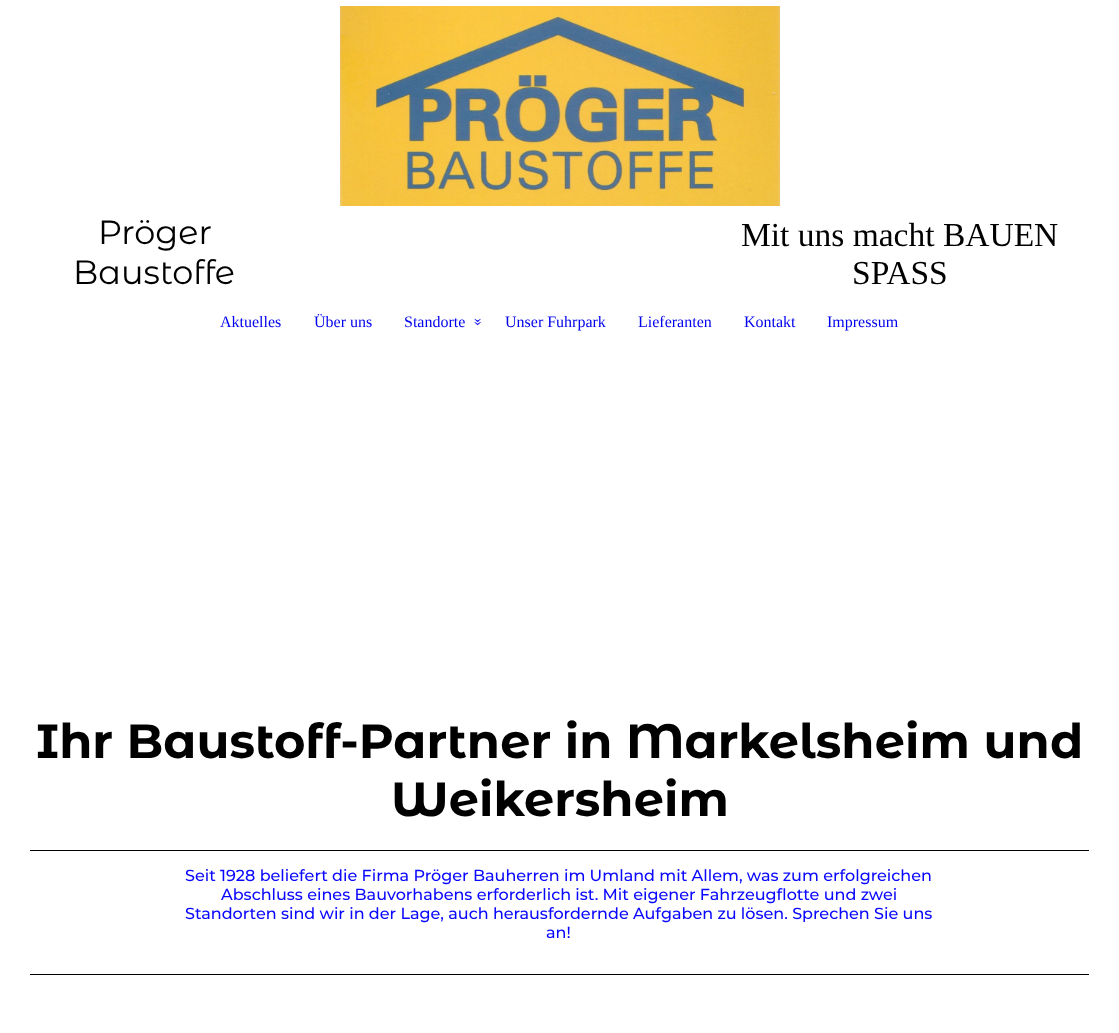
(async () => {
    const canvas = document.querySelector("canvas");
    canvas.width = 1119;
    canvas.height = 1033;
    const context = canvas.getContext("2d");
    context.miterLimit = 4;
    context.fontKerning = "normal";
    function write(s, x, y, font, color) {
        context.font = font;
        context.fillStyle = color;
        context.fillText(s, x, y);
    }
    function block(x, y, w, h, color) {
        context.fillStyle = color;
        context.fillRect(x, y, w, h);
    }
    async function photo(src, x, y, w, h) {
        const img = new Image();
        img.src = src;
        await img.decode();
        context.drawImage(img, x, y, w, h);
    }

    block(0, 0, 1119, 1033, "rgb(255, 255, 255)");
    await photo("media/1.png", 340, 6, 440, 200);
    write("Pröger", 98, 244, "33.5px Montserrat Alternates", "rgb(0, 0, 0)");
    write("Baustoffe", 73, 284, "33.5px Montserrat Alternates", "rgb(0, 0, 0)");
    write("Mit uns macht BAUEN", 741, 246, "33.5px Liberation Serif", "rgb(0, 0, 0)");
    write("SPASS", 852, 284, "33.5px Liberation Serif", "rgb(0, 0, 0)");
    write("Aktuelles", 220, 327, "16px Liberation Serif", "rgb(0, 0, 238)");
    write("Über uns", 314, 327, "16px Liberation Serif", "rgb(0, 0, 238)");
    write("Standorte", 404, 327, "16px Liberation Serif", "rgb(0, 0, 238)");
    context.save();
    context.translate(474, 318);
    context.rotate(90 * Math.PI / 180);
    context.fillText("»", 0, 0);
    context.restore();
    write("Unser Fuhrpark", 505, 327, "16px Liberation Serif", "rgb(0, 0, 238)");
    write("Lieferanten", 638, 327, "16px Liberation Serif", "rgb(0, 0, 238)");
    write("Kontakt", 744, 327, "16px Liberation Serif", "rgb(0, 0, 238)");
    write("Impressum", 827, 327, "16px Liberation Serif", "rgb(0, 0, 238)");
    write("Ihr Baustoff-Partner in Markelsheim und", 36, 758, "bold 48px Montserrat Alternates", "rgb(0, 0, 0)");
    write("Weikersheim", 391, 816, "bold 48px Montserrat Alternates", "rgb(0, 0, 0)");
    block(30, 850, 1059, 1, "rgb(0, 0, 0)");
    write("Seit 1928 beliefert die Firma Pröger Bauherren im Umland mit Allem, was zum erfolgreichen", 185, 881, "500 16px Montserrat", "rgb(9, 7, 255)");
    write("Abschluss eines Bauvorhabens erforderlich ist. Mit eigener Fahrzeugflotte und zwei", 221, 900, "500 16px Montserrat", "rgb(9, 7, 255)");
    write("Standorten sind wir in der Lage, auch herausfordernde Aufgaben zu lösen. Sprechen Sie uns", 185, 919, "500 16px Montserrat", "rgb(9, 7, 255)");
    write("an!", 546, 938, "500 16px Montserrat", "rgb(9, 7, 255)");
    block(30, 974, 1059, 1, "rgb(0, 0, 0)");
})();
